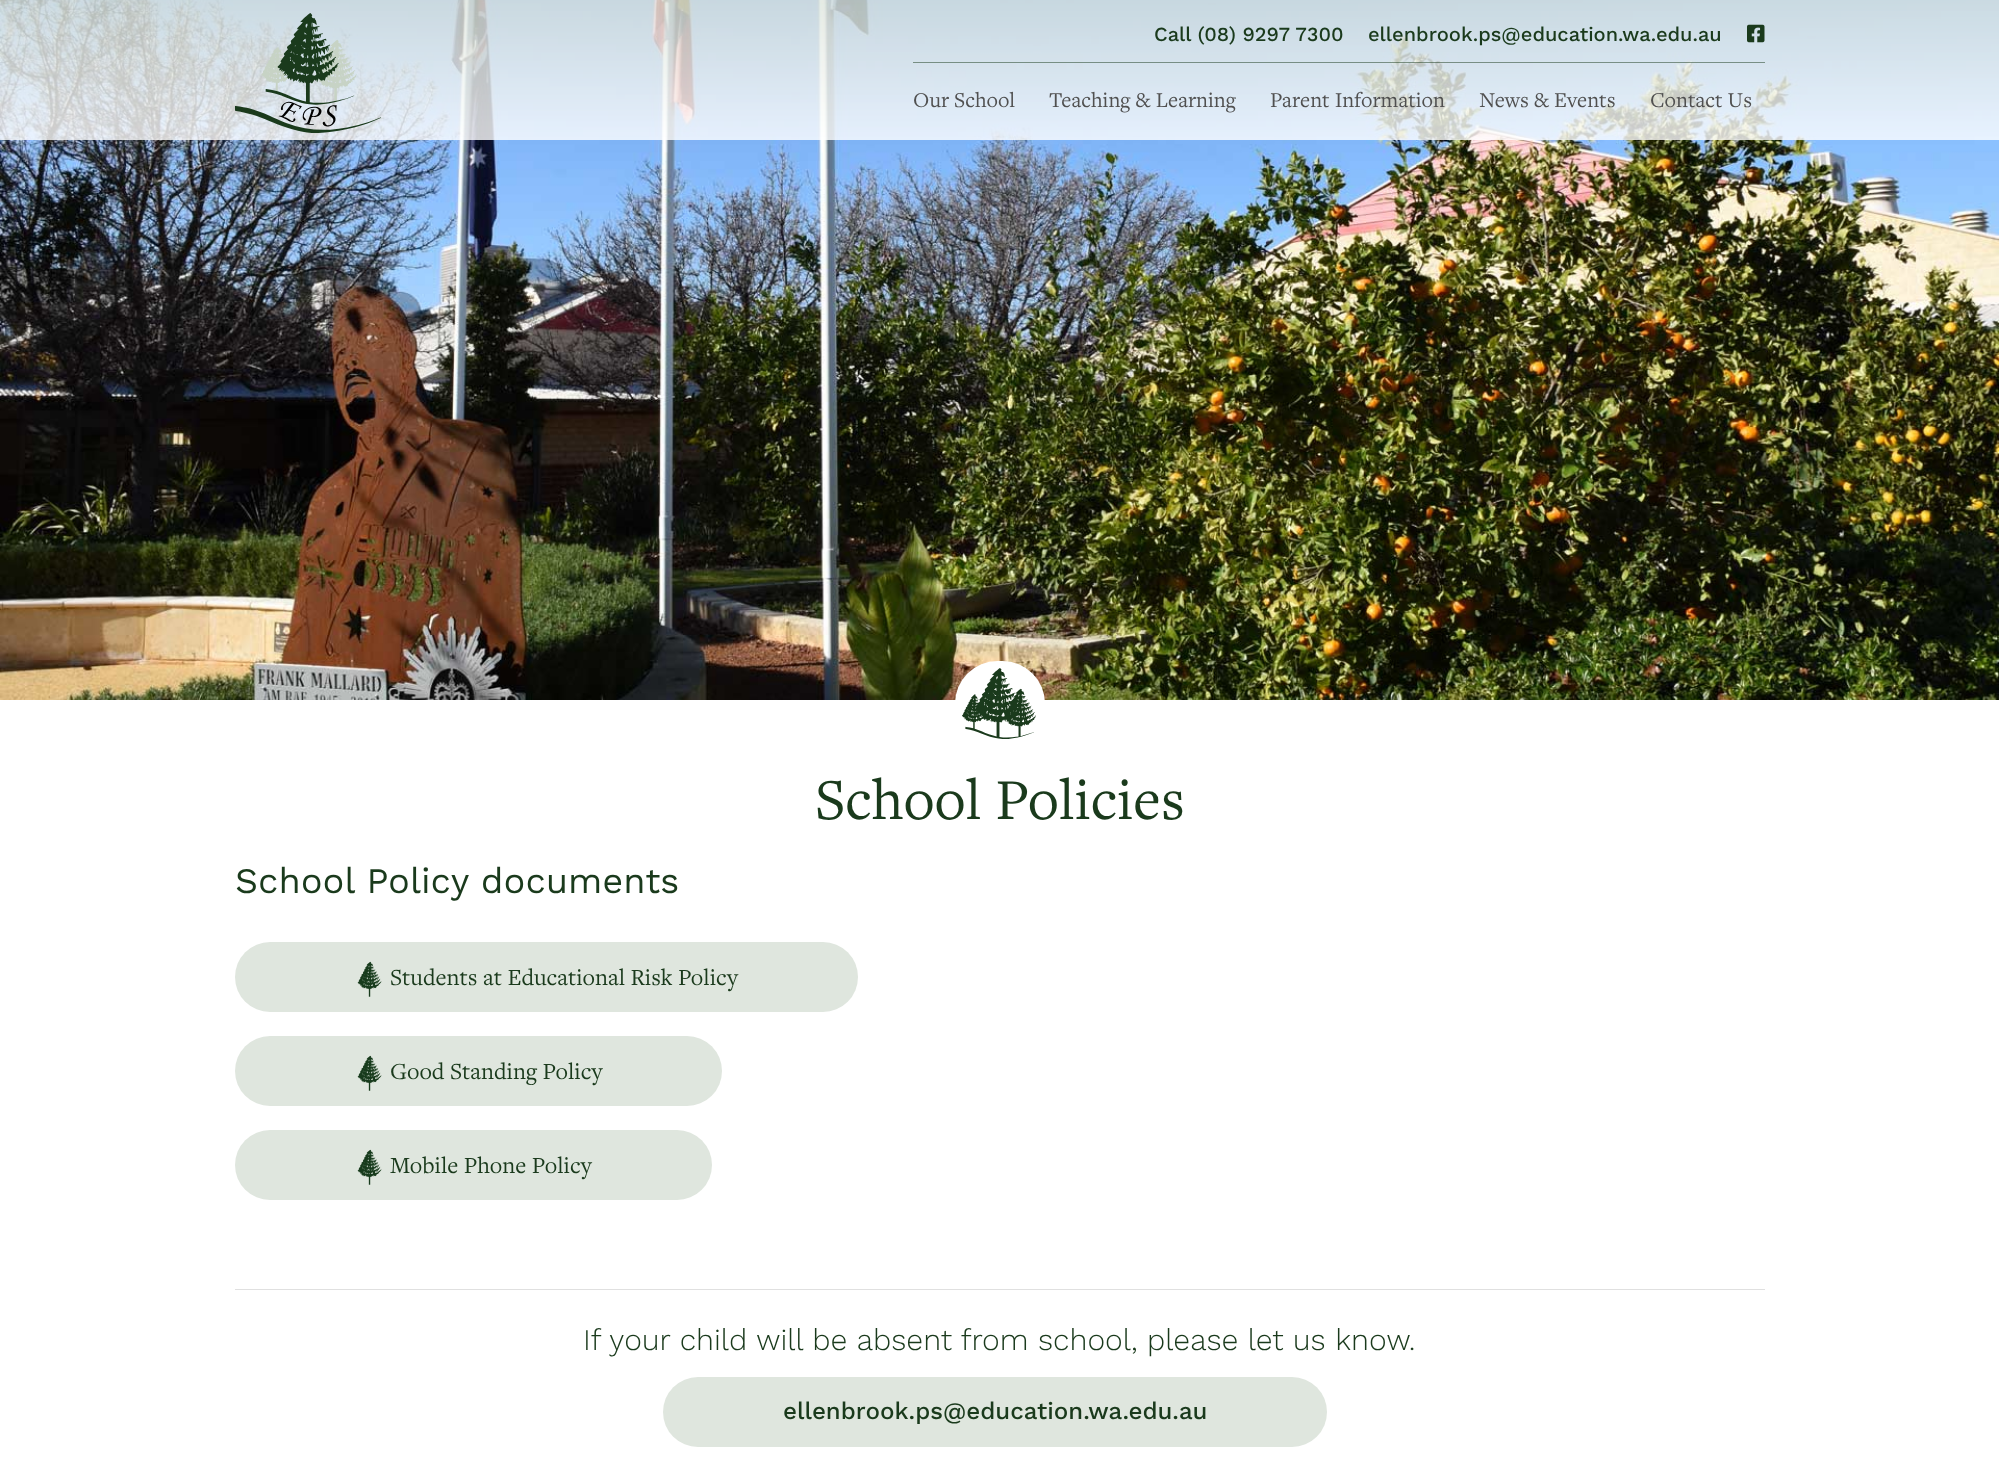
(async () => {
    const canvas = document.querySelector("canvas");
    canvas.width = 1999;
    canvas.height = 1471;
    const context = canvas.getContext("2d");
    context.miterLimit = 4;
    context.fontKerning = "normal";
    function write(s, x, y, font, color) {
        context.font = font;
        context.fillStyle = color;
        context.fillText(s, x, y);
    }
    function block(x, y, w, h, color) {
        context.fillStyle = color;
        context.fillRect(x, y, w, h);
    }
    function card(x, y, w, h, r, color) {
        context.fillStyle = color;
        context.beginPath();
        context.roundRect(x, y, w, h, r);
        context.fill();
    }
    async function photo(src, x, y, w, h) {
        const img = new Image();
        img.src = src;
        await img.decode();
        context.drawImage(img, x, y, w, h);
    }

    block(0, 0, 1999, 1471, "rgb(255, 255, 255)");
    await photo("media/1.png", 0, 0, 1999, 700);
    await photo("media/2.png", 235, 13, 146, 120);
    write("Call (08) 9297 7300", 1154, 41, "500 20px Work Sans", "rgb(26, 58, 28)");
    write("ellenbrook.ps@education.wa.edu.au", 1368, 41, "500 20px Work Sans", "rgb(26, 58, 28)");
    await photo("media/3.png", 1747, 24, 18, 19);
    block(913, 62, 852, 1, "rgba(26, 58, 28, 0.5)");
    write("Our School", 913, 107, "22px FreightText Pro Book", "rgb(80, 80, 80)");
    write("Teaching & Learning", 1049, 107, "22px FreightText Pro Book", "rgb(80, 80, 80)");
    write("Parent Information", 1270, 107, "22px FreightText Pro Book", "rgb(80, 80, 80)");
    write("News & Events", 1479, 107, "22px FreightText Pro Book", "rgb(80, 80, 80)");
    write("Contact Us", 1650, 107, "22px FreightText Pro Book", "rgb(80, 80, 80)");
    card(955, 661, 90, 85, 42.5, "rgb(255, 255, 255)");
    await photo("media/4.png", 962, 668, 74, 71);
    write("School Policies", 815, 819, "60px FreightText Pro Book", "rgb(26, 58, 28)");
    write("School Policy documents", 235, 893, "36px Work Sans", "rgb(26, 58, 28)");
    card(235, 942, 623, 70, 35, "rgb(223, 230, 222)");
    await photo("media/5.png", 357, 961, 25, 36);
    write("Students at Educational Risk Policy", 390, 985, "24px FreightText Pro Book", "rgb(26, 58, 28)");
    card(235, 1036, 487, 70, 35, "rgb(223, 230, 222)");
    await photo("media/5.png", 357, 1055, 25, 36);
    write("Good Standing Policy", 390, 1079, "24px FreightText Pro Book", "rgb(26, 58, 28)");
    card(235, 1130, 477, 70, 35, "rgb(223, 230, 222)");
    await photo("media/5.png", 357, 1149, 25, 36);
    write("Mobile Phone Policy", 390, 1173, "24px FreightText Pro Book", "rgb(26, 58, 28)");
    block(235, 1289, 1530, 1, "rgb(224, 224, 224)");
    write("If your child will be absent from school, please let us know.", 583, 1350, "300 30px Work Sans", "rgb(26, 58, 28)");
    card(663, 1377, 664, 70, 35, "rgb(223, 230, 222)");
    write("ellenbrook.ps@education.wa.edu.au", 783, 1419, "500 24px Work Sans", "rgb(26, 58, 28)");
})();
